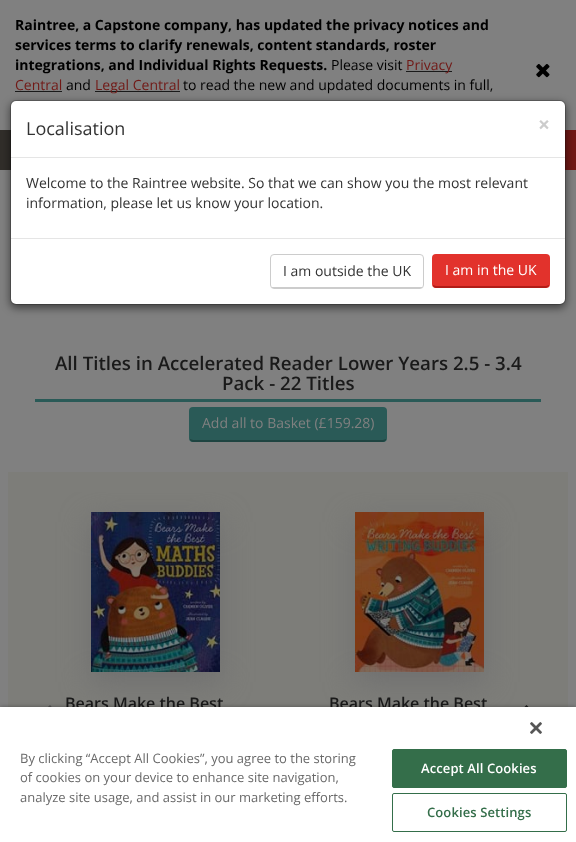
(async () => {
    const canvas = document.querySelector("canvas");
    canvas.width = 576;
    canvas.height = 842;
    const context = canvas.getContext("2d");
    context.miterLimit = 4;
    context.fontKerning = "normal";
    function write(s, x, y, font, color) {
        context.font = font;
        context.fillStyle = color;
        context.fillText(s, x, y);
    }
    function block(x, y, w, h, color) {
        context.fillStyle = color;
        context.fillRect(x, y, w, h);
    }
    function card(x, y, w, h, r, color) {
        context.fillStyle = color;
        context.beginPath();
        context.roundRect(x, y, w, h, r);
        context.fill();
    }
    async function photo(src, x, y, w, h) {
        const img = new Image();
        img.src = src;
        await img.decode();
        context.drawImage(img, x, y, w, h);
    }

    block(0, 0, 576, 842, "rgb(128, 128, 128)");
    write("Raintree, a Capstone company, has updated the privacy notices and", 15, 30, "bold 14px Open Sans", "rgb(0, 0, 0)");
    write("services terms to clarify renewals, content standards, roster", 15, 50, "bold 14px Open Sans", "rgb(0, 0, 0)");
    write("integrations, and Individual Rights Requests.", 15, 70, "bold 14px Open Sans", "rgb(0, 0, 0)");
    write("Please visit", 331, 70, "14px Open Sans", "rgb(0, 0, 0)");
    block(406, 71, 46, 1, "rgb(26, 26, 26)");
    write("Privacy", 406, 70, "14px Open Sans", "rgb(113, 25, 22)");
    write("Central", 15, 90, "14px Open Sans", "rgb(113, 25, 22)");
    block(15, 91, 47, 1, "rgb(26, 26, 26)");
    write("and", 66, 90, "14px Open Sans", "rgb(0, 0, 0)");
    block(95, 91, 85, 1, "rgb(26, 26, 26)");
    write("Legal Central", 95, 90, "14px Open Sans", "rgb(113, 25, 22)");
    write("to read the new and updated documents in full,", 183, 90, "14px Open Sans", "rgb(0, 0, 0)");
    await photo("media/1.png", 536, 64, 14, 14);
    block(0, 130, 11, 40, "rgb(49, 46, 42)");
    block(565, 130, 11, 40, "rgb(113, 25, 22)");
    context.fillStyle = "rgba(0, 0, 0, 0.5)";
    context.filter = "blur(4.5px)";
    context.beginPath();
    context.roundRect(10, 103, 556, 205, 6);
    context.fill();
    context.filter = "none";
    card(11, 101, 554, 203, 5, "rgb(255, 255, 255)");
    context.beginPath();
    context.roundRect(10.5, 100.5, 555, 204, 5.5);
    context.strokeStyle = "rgba(0, 0, 0, 0.2)";
    context.stroke();
    block(11, 157, 554, 1, "rgb(229, 229, 229)");
    write("Localisation", 26, 135, "18px Open Sans", "rgb(51, 51, 51)");
    write("×", 538, 132, "bold 21px Open Sans", "rgb(204, 204, 204)");
    write("Welcome to the Raintree website. So that we can show you the most relevant", 26, 188, "14px Open Sans", "rgb(51, 51, 51)");
    write("information, please let us know your location.", 26, 208, "14px Open Sans", "rgb(51, 51, 51)");
    block(11, 238, 554, 1, "rgb(229, 229, 229)");
    context.beginPath();
    context.roundRect(270.5, 254.5, 153, 34, 3.5);
    context.strokeStyle = "rgb(204, 204, 204)";
    context.stroke();
    block(272, 287, 150, 1, "rgb(204, 204, 204)");
    write("I am outside the UK", 283, 276, "14px Open Sans", "rgb(51, 51, 51)");
    card(432, 254, 118, 34, 4, "rgb(226, 50, 44)");
    context.fillStyle = "rgb(177, 29, 24)";
    context.beginPath();
    context.moveTo(436, 288);
    context.lineTo(546, 288);
    context.lineTo(549, 286);
    context.lineTo(549, 285);
    context.lineTo(546, 286);
    context.lineTo(436, 286);
    context.lineTo(433, 285);
    context.lineTo(433, 286);
    context.bezierCurveTo(434, 287, 435, 288, 436, 288);
    context.closePath();
    context.fill();
    write("I am in the UK", 445, 275, "14px Open Sans", "rgb(255, 255, 255)");
    block(35, 399, 506, 3, "rgb(42, 90, 87)");
    write("All Titles in Accelerated Reader Lower Years 2.5 - 3.4", 55, 370, "600 18.7px Open Sans", "rgb(26, 26, 26)");
    write("Pack - 22 Titles", 222, 390, "600 18.7px Open Sans", "rgb(26, 26, 26)");
    card(189, 407, 198, 35, 4, "rgb(42, 90, 87)");
    context.fillStyle = "rgb(30, 68, 65)";
    context.beginPath();
    context.moveTo(193, 442);
    context.lineTo(383, 442);
    context.bezierCurveTo(384, 442, 385, 441, 386, 440);
    context.lineTo(386, 439);
    context.lineTo(383, 440);
    context.lineTo(193, 440);
    context.lineTo(190, 439);
    context.lineTo(190, 440);
    context.bezierCurveTo(191, 441, 192, 442, 193, 442);
    context.closePath();
    context.fill();
    write("Add all to Basket (£159.28)", 202, 428, "14px Open Sans", "rgb(128, 128, 128)");
    block(8, 472, 560, 235, "rgb(125, 125, 121)");
    context.save();
    context.beginPath();
    context.rect(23, 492, 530, 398);
    context.clip();
    context.fillStyle = "rgb(111, 111, 111)";
    context.filter = "blur(15px)";
    context.beginPath();
    context.rect(91, 522, 129, 160);
    context.fill();
    context.filter = "none";
    context.restore();
    await photo("media/2.png", 91, 512, 129, 160);
    write("Bears Make the Best", 65, 709, "600 16px Open Sans", "rgb(26, 26, 26)");
    context.save();
    context.beginPath();
    context.rect(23, 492, 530, 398);
    context.clip();
    context.fillStyle = "rgb(111, 111, 111)";
    context.filter = "blur(15px)";
    context.beginPath();
    context.rect(355, 522, 129, 160);
    context.fill();
    context.filter = "none";
    context.restore();
    await photo("media/3.png", 355, 512, 129, 160);
    write("Bears Make the Best", 329, 709, "600 16px Open Sans", "rgb(26, 26, 26)");
    context.fillStyle = "rgb(85, 85, 85)";
    context.beginPath();
    context.moveTo(53.5, 709);
    context.lineTo(46.5, 716);
    context.lineTo(53.5, 723);
    context.lineTo(50, 727);
    context.lineTo(38.5, 716);
    context.lineTo(50, 705);
    context.closePath();
    context.fill();
    context.fillStyle = "rgb(26, 26, 26)";
    context.beginPath();
    context.moveTo(537.5, 716);
    context.lineTo(526.5, 727);
    context.lineTo(522.5, 723);
    context.lineTo(529.5, 716);
    context.lineTo(522.5, 709);
    context.lineTo(526.5, 705);
    context.closePath();
    context.fill();
    context.fillStyle = "rgba(0, 0, 0, 0.35)";
    context.filter = "blur(2px)";
    context.beginPath();
    context.rect(0, 707, 576, 135);
    context.fill();
    context.filter = "none";
    block(0, 707, 576, 135, "rgb(255, 255, 255)");
    await photo("media/4.png", 530, 722, 12, 12);
    write("By clicking “Accept All Cookies”, you agree to the storing", 20, 763, "13px Open Sans", "rgb(105, 105, 105)");
    write("of cookies on your device to enhance site navigation,", 20, 782, "13px Open Sans", "rgb(105, 105, 105)");
    write("analyze site usage, and assist in our marketing efforts.", 20, 802, "13px Open Sans", "rgb(105, 105, 105)");
    context.fillStyle = "rgb(52, 110, 74)";
    context.beginPath();
    context.roundRect(392.5, 749.5, 174, 38, 1.5);
    context.fill();
    context.strokeStyle = "rgb(52, 110, 74)";
    context.stroke();
    context.letterSpacing = "0.1px";
    write("Accept All Cookies", 421, 773, "600 13px Open Sans", "rgb(255, 255, 255)");
    context.beginPath();
    context.roundRect(392.5, 793.5, 174, 38, 1.5);
    context.stroke();
    write("Cookies Settings", 427, 817, "600 13px Open Sans", "rgb(52, 110, 74)");
})();
